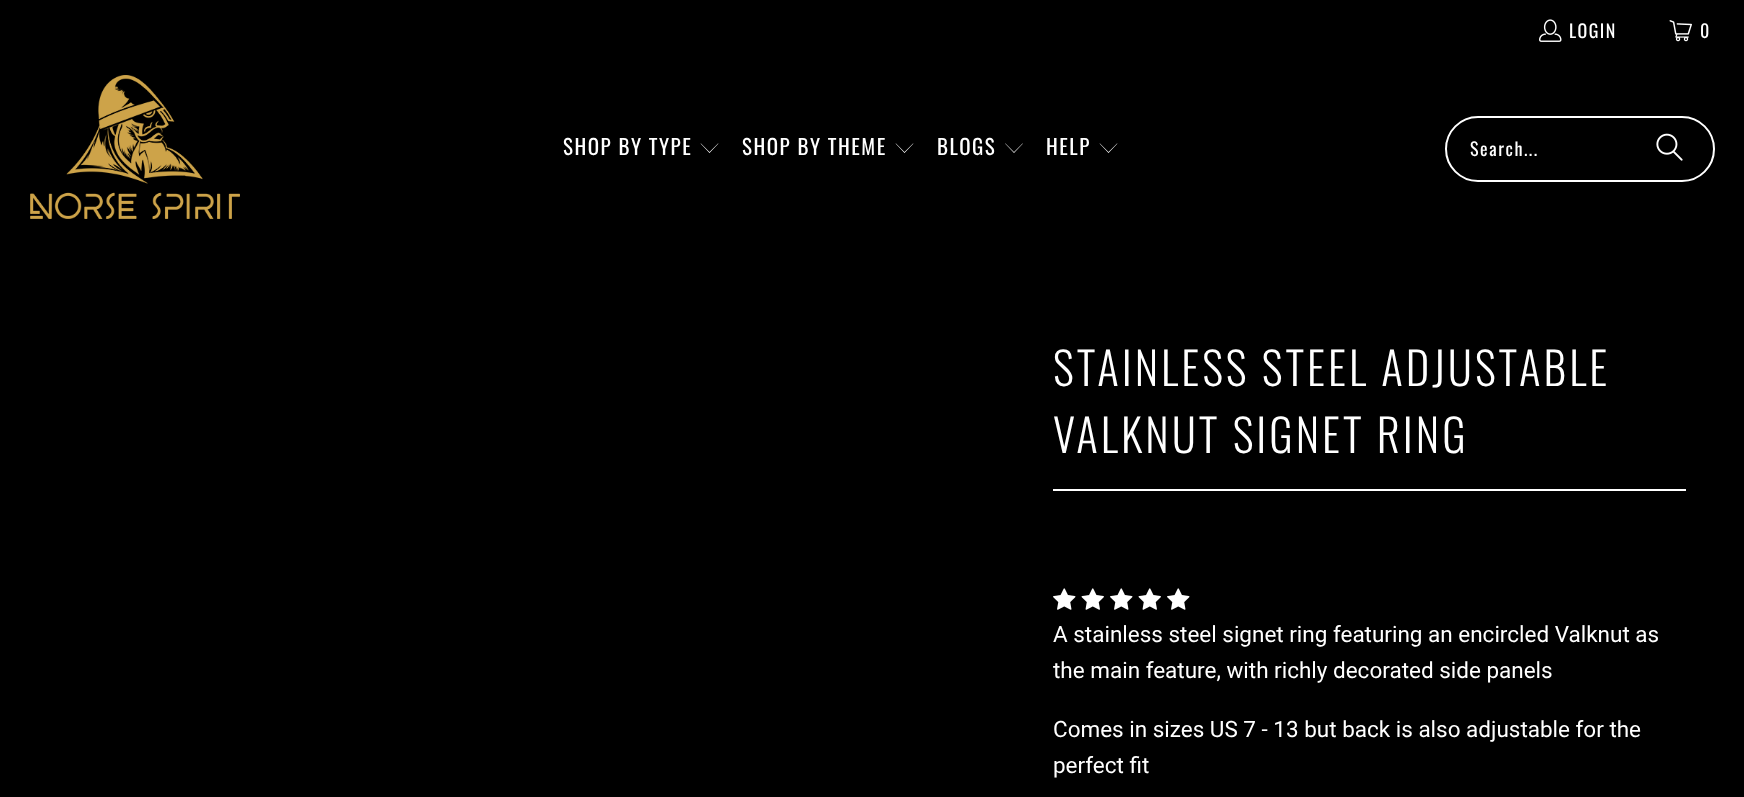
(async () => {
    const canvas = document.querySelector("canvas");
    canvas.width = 1744;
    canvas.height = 797;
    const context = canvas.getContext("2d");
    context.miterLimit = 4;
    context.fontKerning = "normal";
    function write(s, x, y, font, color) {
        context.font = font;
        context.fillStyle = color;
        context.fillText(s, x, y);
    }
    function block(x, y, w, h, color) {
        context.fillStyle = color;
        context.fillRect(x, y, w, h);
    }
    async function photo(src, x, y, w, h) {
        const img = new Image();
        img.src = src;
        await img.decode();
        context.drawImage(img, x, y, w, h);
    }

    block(0, 0, 1744, 797, "rgb(0, 0, 0)");
    await photo("media/1.png", 1539, 19, 23, 23);
    context.letterSpacing = "1.5px";
    write("LOGIN", 1569, 38, "18px Oswald", "rgb(255, 255, 255)");
    await photo("media/2.png", 1669, 20, 23, 22);
    write("0", 1700, 38, "18px Oswald", "rgb(255, 255, 255)");
    await photo("media/3.png", 30, 75, 210, 144);
    write("SHOP BY TYPE", 563, 155, "21px Oswald", "rgb(255, 255, 255)");
    context.beginPath();
    context.moveTo(709.5, 153);
    context.lineTo(700.5, 143.5);
    context.lineTo(701, 143.5);
    context.lineTo(709.5, 152);
    context.lineTo(718, 143.5);
    context.lineTo(718.5, 143.5);
    context.closePath();
    context.fill();
    write("SHOP BY THEME", 742, 155, "21px Oswald", "rgb(255, 255, 255)");
    context.beginPath();
    context.moveTo(904.5, 153);
    context.lineTo(895.5, 143.5);
    context.lineTo(896, 143.5);
    context.lineTo(904.5, 152);
    context.lineTo(913, 143.5);
    context.lineTo(913.5, 143.5);
    context.closePath();
    context.fill();
    write("BLOGS", 937, 155, "21px Oswald", "rgb(255, 255, 255)");
    context.beginPath();
    context.moveTo(1014, 153);
    context.lineTo(1005, 143.5);
    context.lineTo(1005.5, 143.5);
    context.lineTo(1014, 152);
    context.lineTo(1022.5, 143.5);
    context.lineTo(1023, 143.5);
    context.closePath();
    context.fill();
    write("HELP", 1046, 155, "21px Oswald", "rgb(255, 255, 255)");
    context.beginPath();
    context.moveTo(1108.5, 153);
    context.lineTo(1099.5, 143.5);
    context.lineTo(1100, 143.5);
    context.lineTo(1108.5, 152);
    context.lineTo(1117, 143.5);
    context.lineTo(1117.5, 143.5);
    context.closePath();
    context.fill();
    context.beginPath();
    context.roundRect(1446, 117, 268, 64, 32);
    context.strokeStyle = "rgb(255, 255, 255)";
    context.lineWidth = 2;
    context.stroke();
    write("Search...", 1470, 156, "18px Oswald", "rgb(255, 255, 255)");
    await photo("media/4.png", 1656, 133, 27, 28);
    context.letterSpacing = "3px";
    write("STAINLESS STEEL ADJUSTABLE", 1053, 386, "300 45px Oswald", "rgb(255, 255, 255)");
    write("VALKNUT SIGNET RING", 1053, 453, "300 45px Oswald", "rgb(255, 255, 255)");
    block(1053, 489, 633, 2, "rgb(255, 255, 255)");
    await photo("media/5.png", 1053, 588, 23, 22);
    await photo("media/6.png", 1081, 588, 23, 22);
    await photo("media/5.png", 1110, 588, 23, 22);
    await photo("media/6.png", 1138, 588, 23, 22);
    await photo("media/5.png", 1167, 588, 23, 22);
    context.letterSpacing = "0px";
    write("A stainless steel signet ring featuring an encircled Valknut as", 1053, 642, "22.5px Roboto", "rgb(255, 255, 255)");
    write("the main feature, with richly decorated side panels", 1053, 678, "22.5px Roboto", "rgb(255, 255, 255)");
    write("Comes in sizes US 7 - 13 but back is also adjustable for the", 1053, 737, "22.5px Roboto", "rgb(255, 255, 255)");
    write("perfect fit", 1053, 773, "22.5px Roboto", "rgb(255, 255, 255)");
})();
